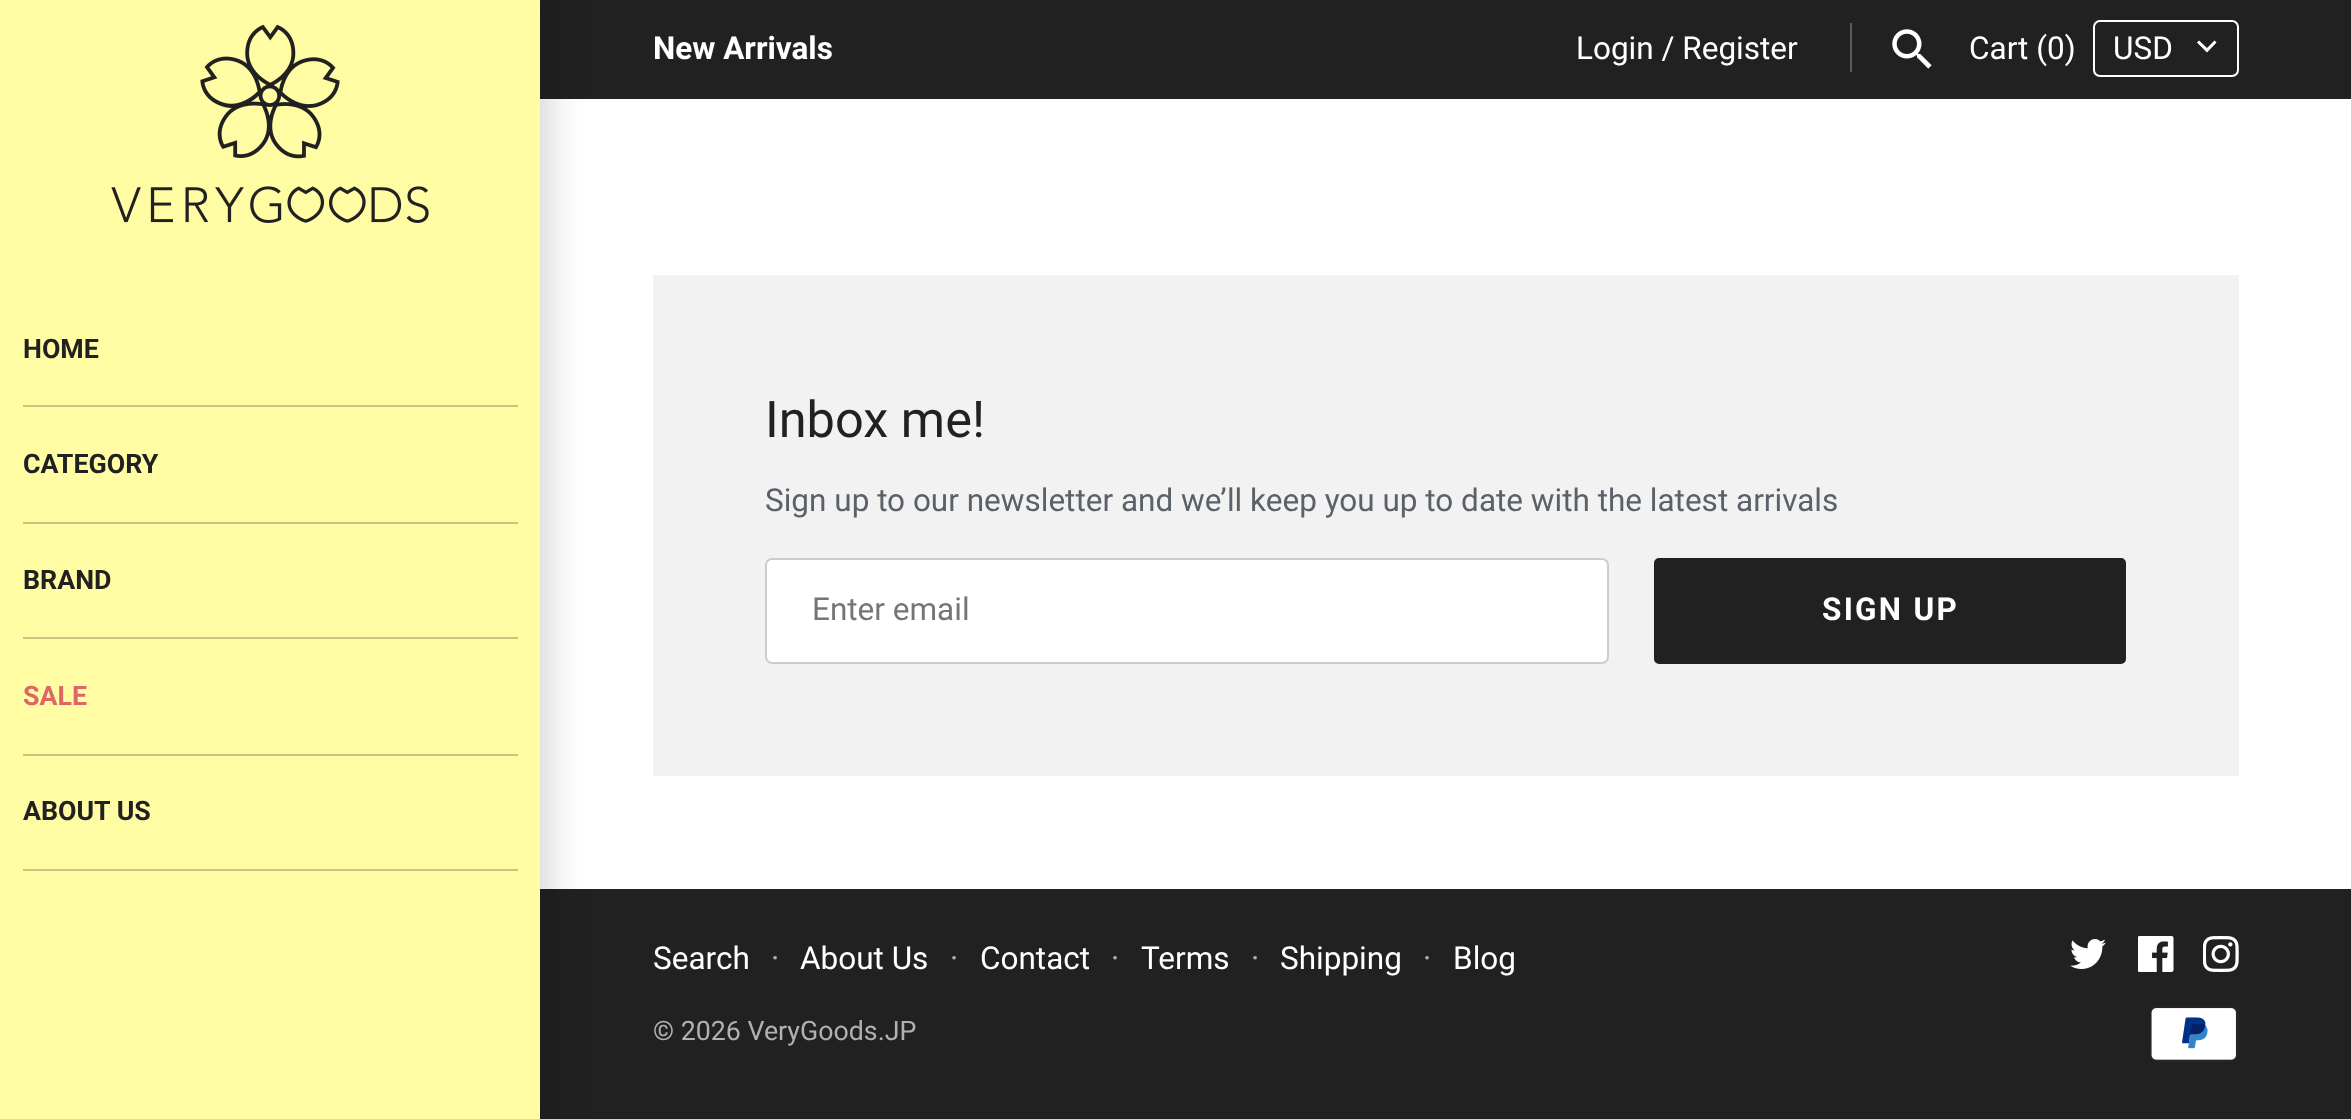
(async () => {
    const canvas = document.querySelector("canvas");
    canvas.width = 2351;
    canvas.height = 1119;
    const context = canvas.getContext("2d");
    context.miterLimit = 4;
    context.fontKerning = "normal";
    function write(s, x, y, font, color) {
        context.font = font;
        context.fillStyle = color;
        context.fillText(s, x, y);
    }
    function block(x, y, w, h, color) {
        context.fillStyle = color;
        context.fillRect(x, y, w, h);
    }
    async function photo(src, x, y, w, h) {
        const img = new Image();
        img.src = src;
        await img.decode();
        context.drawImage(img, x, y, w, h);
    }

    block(0, 0, 2351, 1119, "rgb(255, 255, 255)");
    block(540, 0, 1811, 99, "rgb(33, 33, 33)");
    write("New Arrivals", 653, 59, "bold 31.5px Roboto", "rgb(255, 255, 255)");
    write("Login / Register", 1576, 59, "31.5px Roboto", "rgb(255, 255, 255)");
    block(1850, 23, 2, 49, "rgb(89, 89, 89)");
    await photo("media/1.png", 1892, 29, 40, 40);
    write("Cart (0)", 1969, 59, "31.5px Roboto", "rgb(255, 255, 255)");
    context.beginPath();
    context.moveTo(2199, 40.5);
    context.lineTo(2207, 48);
    context.lineTo(2214.5, 40.5);
    context.lineTo(2216.5, 42.5);
    context.lineTo(2207, 52.5);
    context.lineTo(2197, 42.5);
    context.closePath();
    context.fill();
    context.beginPath();
    context.roundRect(2094, 21, 144, 55, 6);
    context.strokeStyle = "rgb(255, 255, 255)";
    context.lineWidth = 2;
    context.stroke();
    write("USD", 2113, 59, "31.5px Roboto", "rgb(255, 255, 255)");
    block(540, 889, 1811, 230, "rgb(33, 33, 33)");
    context.fillStyle = "rgba(0, 0, 0, 0.15)";
    context.filter = "blur(17px)";
    context.beginPath();
    context.rect(-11, -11, 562, 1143);
    context.fill();
    context.filter = "none";
    block(0, 0, 540, 1119, "rgb(255, 252, 163)");
    await photo("media/2.png", 111, 24, 318, 199);
    block(23, 405, 495, 2, "rgb(200, 197, 131)");
    write("HOME", 23, 358, "bold 26.75px Roboto", "rgb(33, 33, 33)");
    block(23, 522, 495, 2, "rgb(200, 197, 131)");
    write("CATEGORY", 23, 473, "bold 26.75px Roboto", "rgb(33, 33, 33)");
    block(23, 637, 495, 2, "rgb(200, 197, 131)");
    write("BRAND", 23, 589, "bold 26.75px Roboto", "rgb(33, 33, 33)");
    block(23, 754, 495, 2, "rgb(200, 197, 131)");
    write("SALE", 23, 705, "bold 26.75px Roboto", "rgb(221, 102, 102)");
    block(23, 869, 495, 2, "rgb(200, 197, 131)");
    write("ABOUT US", 23, 820, "bold 26.75px Roboto", "rgb(33, 33, 33)");
    block(653, 275, 1586, 501, "rgb(242, 242, 242)");
    write("Inbox me!", 765, 437, "50.5px Roboto", "rgb(33, 33, 33)");
    write("Sign up to our newsletter and we’ll keep you up to date with the latest arrivals", 765, 511, "31.5px Roboto", "rgb(91, 97, 105)");
    context.fillStyle = "rgb(255, 255, 255)";
    context.beginPath();
    context.roundRect(766, 559, 842, 104, 6);
    context.fill();
    context.strokeStyle = "rgb(204, 204, 204)";
    context.stroke();
    write("Enter email", 812, 620, "31.5px Roboto", "rgb(117, 117, 117)");
    context.fillStyle = "rgb(33, 33, 33)";
    context.beginPath();
    context.roundRect(1655, 559, 470, 104, 4);
    context.fill();
    context.strokeStyle = "rgb(33, 33, 33)";
    context.stroke();
    context.letterSpacing = "2.25px";
    write("SIGN UP", 1822, 620, "bold 31.5px Roboto", "rgb(255, 255, 255)");
    context.letterSpacing = "0px";
    write("Search", 653, 969, "31.5px Roboto", "rgb(255, 255, 255)");
    write("·", 771, 969, "31.5px Roboto", "rgb(177, 177, 177)");
    write("About Us", 800, 969, "31.5px Roboto", "rgb(255, 255, 255)");
    write("·", 950, 969, "31.5px Roboto", "rgb(177, 177, 177)");
    write("Contact", 980, 969, "31.5px Roboto", "rgb(255, 255, 255)");
    write("·", 1111, 969, "31.5px Roboto", "rgb(177, 177, 177)");
    write("Terms", 1141, 969, "31.5px Roboto", "rgb(255, 255, 255)");
    write("·", 1251, 969, "31.5px Roboto", "rgb(177, 177, 177)");
    write("Shipping", 1280, 969, "31.5px Roboto", "rgb(255, 255, 255)");
    write("·", 1423, 969, "31.5px Roboto", "rgb(177, 177, 177)");
    write("Blog", 1453, 969, "31.5px Roboto", "rgb(255, 255, 255)");
    await photo("media/3.png", 2070, 939, 36, 30);
    await photo("media/4.png", 2138, 936, 36, 36);
    await photo("media/5.png", 2203, 936, 36, 36);
    write("© 2026 VeryGoods.JP", 653, 1040, "26.75px Roboto", "rgb(177, 177, 177)");
    await photo("media/6.png", 2150, 1006, 88, 56);
})();
